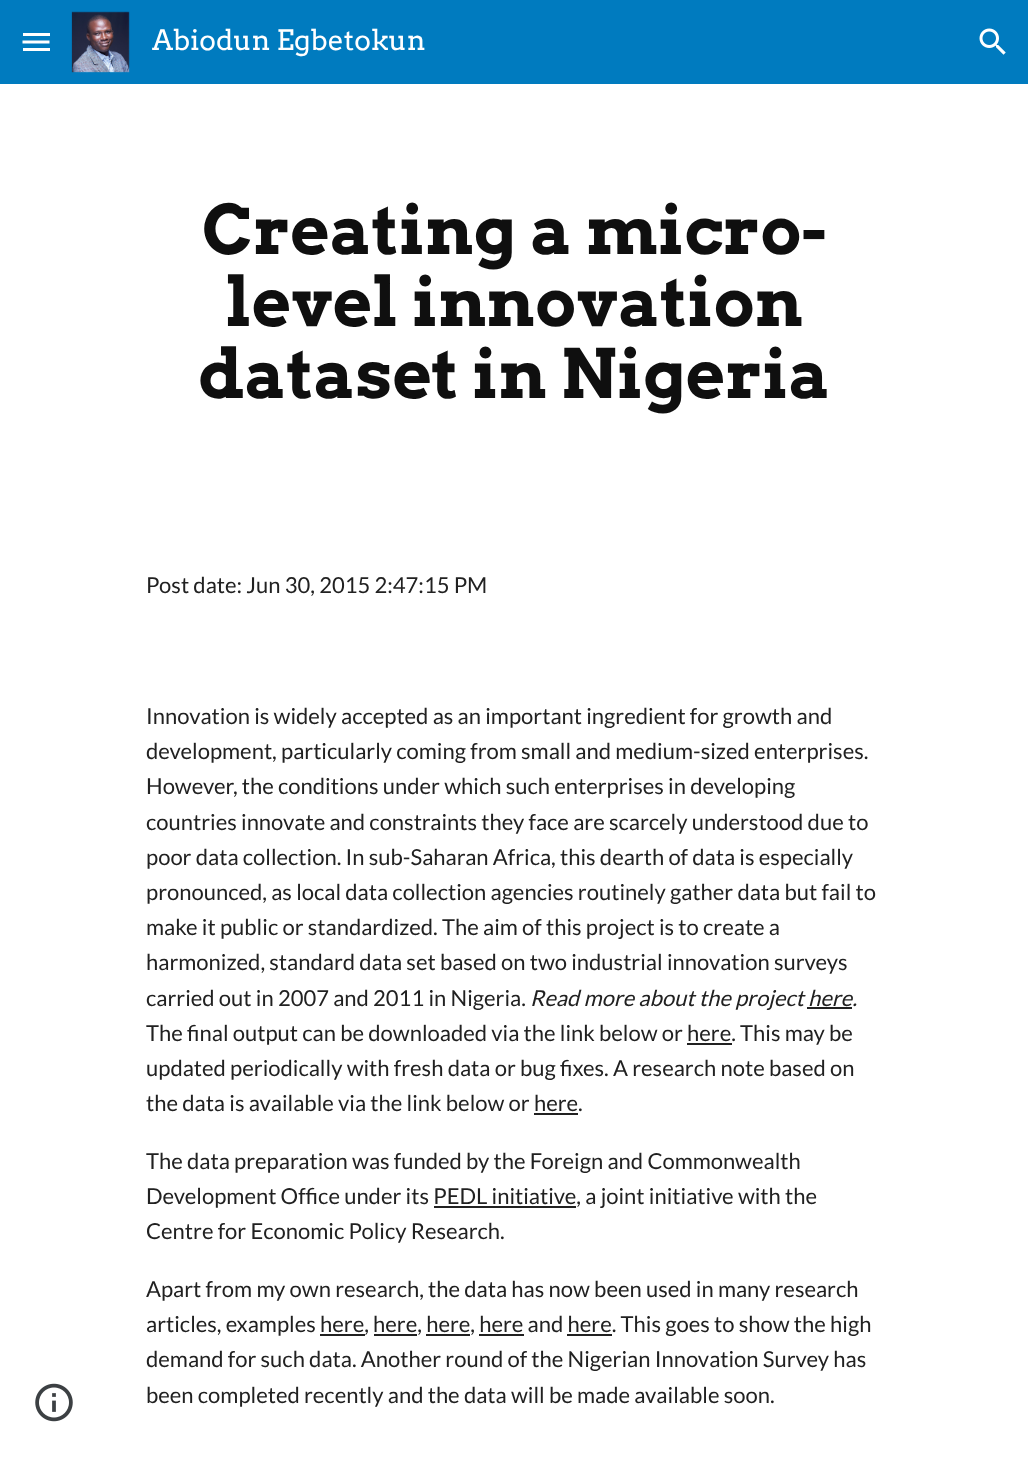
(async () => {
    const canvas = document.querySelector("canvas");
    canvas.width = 1028;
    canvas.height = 1473;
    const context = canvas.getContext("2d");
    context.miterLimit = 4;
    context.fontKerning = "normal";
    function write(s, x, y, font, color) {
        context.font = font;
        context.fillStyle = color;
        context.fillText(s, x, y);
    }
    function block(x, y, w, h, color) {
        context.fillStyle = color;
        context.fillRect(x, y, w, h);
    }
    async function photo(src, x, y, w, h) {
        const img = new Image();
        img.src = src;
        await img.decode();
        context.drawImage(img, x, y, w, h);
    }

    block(0, 0, 1028, 1473, "rgb(255, 255, 255)");
    block(0, 0, 1028, 84, "rgb(0, 123, 191)");
    block(23, 33, 27, 3, "rgb(255, 255, 255)");
    context.beginPath();
    context.moveTo(22.5, 42);
    context.lineTo(49.5, 42);
    context.strokeStyle = "rgb(255, 255, 255)";
    context.lineWidth = 3;
    context.stroke();
    block(23, 48, 27, 3, "rgb(255, 255, 255)");
    await photo("media/1.png", 71, 11, 59, 62);
    write("Abiodun Egbetokun", 152, 50, "28px Arvo", "rgb(255, 255, 255)");
    await photo("media/2.png", 979, 28, 27, 27);
    await photo("media/3.png", 35, 1383, 38, 39);
    write("Creating a micro-", 202, 254, "bold 68px Arvo", "rgb(15, 15, 15)");
    write("level innovation", 226, 326, "bold 68px Arvo", "rgb(15, 15, 15)");
    write("dataset in Nigeria", 198, 398, "bold 68px Arvo", "rgb(15, 15, 15)");
    write("Post date: Jun 30, 2015 2:47:15 PM", 146, 593, "22px Lato", "rgb(33, 33, 33)");
    write("Innovation is widely accepted as an important ingredient for growth and", 146, 724, "22px Lato", "rgb(33, 33, 33)");
    write("development, particularly coming from small and medium-sized enterprises.", 146, 759, "22px Lato", "rgb(33, 33, 33)");
    write("However, the conditions under which such enterprises in developing", 146, 794, "22px Lato", "rgb(33, 33, 33)");
    write("countries innovate and constraints they face are scarcely understood due to", 146, 830, "22px Lato", "rgb(33, 33, 33)");
    write("poor data collection. In sub-Saharan Africa, this dearth of data is especially", 146, 865, "22px Lato", "rgb(33, 33, 33)");
    write("pronounced, as local data collection agencies routinely gather data but fail to", 146, 900, "22px Lato", "rgb(33, 33, 33)");
    write("make it public or standardized. The aim of this project is to create a", 146, 935, "22px Lato", "rgb(33, 33, 33)");
    write("harmonized, standard data set based on two industrial innovation surveys", 146, 970, "22px Lato", "rgb(33, 33, 33)");
    write("carried out in 2007 and 2011 in Nigeria.", 146, 1006, "22px Lato", "rgb(33, 33, 33)");
    write("Read more about the project here.", 530, 1006, "italic 22px Lato", "rgb(33, 33, 33)");
    block(807, 1007, 45, 2, "rgb(33, 33, 33)");
    write("The final output can be downloaded via the link below or", 146, 1041, "22px Lato", "rgb(33, 33, 33)");
    block(687, 1043, 45, 2, "rgb(33, 33, 33)");
    write("here. This may be", 687, 1041, "22px Lato", "rgb(33, 33, 33)");
    write("updated periodically with fresh data or bug fixes. A research note based on", 146, 1076, "22px Lato", "rgb(33, 33, 33)");
    write("the data is available via the link below or here.", 146, 1111, "22px Lato", "rgb(33, 33, 33)");
    block(534, 1113, 44, 2, "rgb(33, 33, 33)");
    write("The data preparation was funded by the Foreign and Commonwealth", 146, 1169, "22px Lato", "rgb(33, 33, 33)");
    write("Development Office under its PEDL initiative, a joint initiative with the", 146, 1204, "22px Lato", "rgb(33, 33, 33)");
    block(434, 1206, 142, 2, "rgb(33, 33, 33)");
    write("Centre for Economic Policy Research.", 146, 1239, "22px Lato", "rgb(33, 33, 33)");
    write("Apart from my own research, the data has now been used in many research", 146, 1297, "22px Lato", "rgb(33, 33, 33)");
    write("articles, examples here, here, here, here and here. This goes to show the high", 146, 1332, "22px Lato", "rgb(33, 33, 33)");
    block(320, 1334, 45, 2, "rgb(33, 33, 33)");
    block(374, 1334, 43, 2, "rgb(33, 33, 33)");
    block(426, 1334, 44, 2, "rgb(33, 33, 33)");
    block(479, 1334, 45, 2, "rgb(33, 33, 33)");
    block(567, 1334, 45, 2, "rgb(33, 33, 33)");
    write("demand for such data. Another round of the Nigerian Innovation Survey has", 146, 1367, "22px Lato", "rgb(33, 33, 33)");
    write("been completed recently and the data will be made available soon.", 146, 1403, "22px Lato", "rgb(33, 33, 33)");
})();
